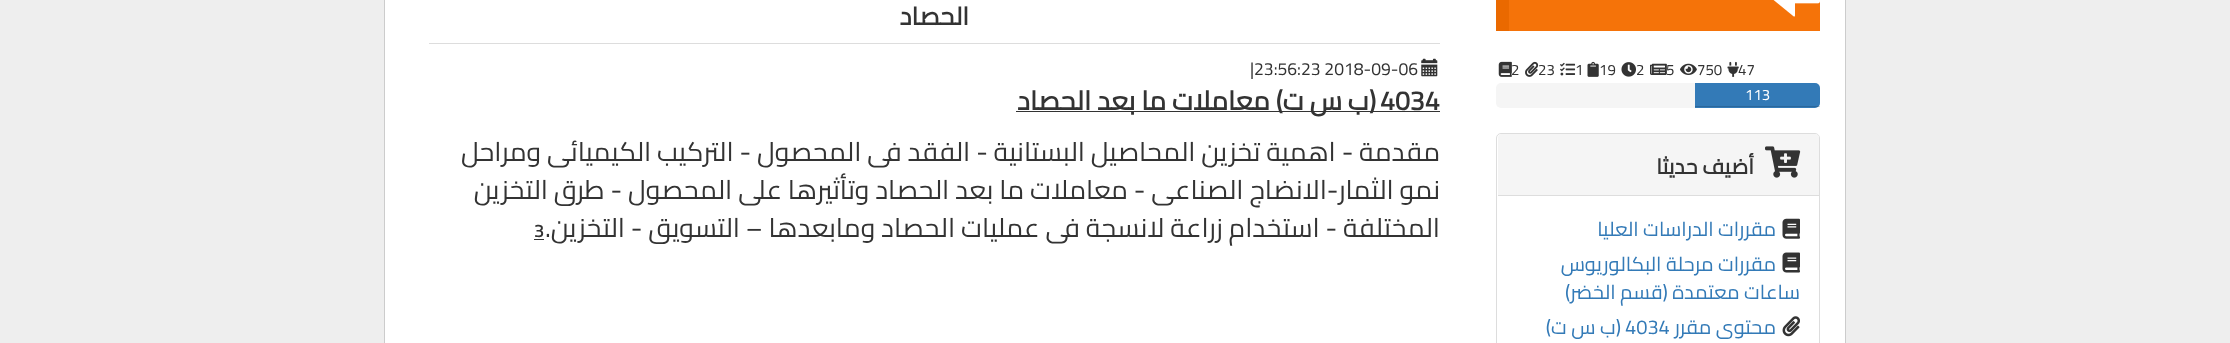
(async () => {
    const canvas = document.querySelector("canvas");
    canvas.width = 2230;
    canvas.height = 343;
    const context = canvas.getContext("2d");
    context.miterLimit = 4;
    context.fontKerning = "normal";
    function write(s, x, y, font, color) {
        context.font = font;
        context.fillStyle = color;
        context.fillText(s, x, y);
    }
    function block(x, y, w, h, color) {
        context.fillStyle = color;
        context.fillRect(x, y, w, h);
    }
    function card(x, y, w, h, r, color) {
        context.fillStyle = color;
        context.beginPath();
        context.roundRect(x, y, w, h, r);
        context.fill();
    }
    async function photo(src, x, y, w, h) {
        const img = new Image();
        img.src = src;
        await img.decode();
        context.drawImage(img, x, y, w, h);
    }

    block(0, 0, 2230, 343, "rgb(238, 238, 238)");
    context.fillStyle = "rgb(255, 255, 255)";
    context.beginPath();
    context.rect(384.5, -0.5, 1461, 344);
    context.fill();
    context.strokeStyle = "rgb(204, 204, 204)";
    context.stroke();
    block(1509, 0, 311, 31, "rgb(245, 115, 9)");
    block(1496, 0, 13, 31, "rgb(234, 105, 0)");
    await photo("media/1.png", 1773, 0, 47, 17);
    write("47", 1738, 75, "15px Cairo", "rgb(51, 51, 51)");
    await photo("media/2.png", 1727, 61, 12, 16);
    write("750", 1697, 75, "15px Cairo", "rgb(51, 51, 51)");
    await photo("media/3.png", 1680, 63, 17, 12);
    write("5", 1666, 75, "15px Cairo", "rgb(51, 51, 51)");
    await photo("media/4.png", 1650, 63, 17, 12);
    write("2", 1636, 75, "15px Cairo", "rgb(51, 51, 51)");
    await photo("media/5.png", 1621, 62, 15, 15);
    write("19", 1599, 75, "15px Cairo", "rgb(51, 51, 51)");
    await photo("media/6.png", 1587, 61, 12, 16);
    write("1", 1575, 75, "15px Cairo", "rgb(51, 51, 51)");
    await photo("media/7.png", 1560, 62, 16, 14);
    write("23", 1538, 75, "15px Cairo", "rgb(51, 51, 51)");
    await photo("media/8.png", 1525, 61, 14, 16);
    write("2", 1511, 75, "15px Cairo", "rgb(51, 51, 51)");
    await photo("media/9.png", 1498, 61, 14, 16);
    card(1496, 83, 324, 25, 5, "rgb(245, 245, 245)");
    context.fillStyle = "rgb(51, 122, 183)";
    context.beginPath();
    context.roundRect(1695, 83, 125, 25, [0, 5, 5, 0]);
    context.fill();
    block(1695, 106, 125, 1, "rgba(0, 0, 0, 0.15)");
    write("113", 1745, 100, "15px Cairo", "rgb(255, 255, 255)");
    context.beginPath();
    context.roundRect(1496.5, 133.5, 323, 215, 4.5);
    context.strokeStyle = "rgb(221, 221, 221)";
    context.stroke();
    context.fillStyle = "rgb(245, 245, 245)";
    context.beginPath();
    context.roundRect(1498, 134, 321, 62, [4, 4, 0, 0]);
    context.fill();
    block(1498, 195, 321, 1, "rgb(221, 221, 221)");
    await photo("media/10.png", 1765, 146, 36, 32);
    context.direction = "rtl";
    write("أضيف حديثا", 1754, 174, "bold 21.25px Cairo", "rgb(51, 51, 51)");
    await photo("media/11.png", 1782, 218, 18, 21);
    write("مقررات الدراسات العليا", 1776, 236, "20px Cairo", "rgb(51, 122, 183)");
    await photo("media/12.png", 1782, 252, 18, 21);
    write("مقررات مرحلة البكالوريوس", 1776, 271, "20px Cairo", "rgb(51, 122, 183)");
    write("ساعات معتمدة (قسم الخضر)", 1800, 299, "20px Cairo", "rgb(51, 122, 183)");
    await photo("media/13.png", 1782, 316, 18, 21);
    write("محتوى مقرر", 1776, 334, "20px Cairo", "rgb(51, 122, 183)");
    context.direction = "ltr";
    write("4034", 1625, 334, "20px Cairo", "rgb(51, 122, 183)");
    context.direction = "rtl";
    write("(ب س ت)", 1621, 334, "20px Cairo", "rgb(51, 122, 183)");
    block(429, 43, 1011, 1, "rgb(221, 221, 221)");
    write("الحصاد", 969, 25, "bold 25px Cairo", "rgb(51, 51, 51)");
    await photo("media/14.png", 1421, 58, 17, 19);
    context.direction = "ltr";
    write("|23:56:23 2018-09-06", 1250, 75, "17.5px Cairo", "rgb(51, 51, 51)");
    write("4034", 1380, 110, "bold 26.65px Cairo", "rgb(51, 51, 51)");
    block(1016, 111, 424, 1, "rgb(51, 51, 51)");
    context.direction = "rtl";
    write("(ب س ت) معاملات ما بعد الحصاد", 1376, 110, "bold 26.65px Cairo", "rgb(51, 51, 51)");
    write("مقدمة - اهمية تخزين المحاصيل البستانية - الفقد فى المحصول - التركيب الكيميائى ومراحل", 1440, 161, "26.65px Cairo", "rgb(51, 51, 51)");
    write("نمو الثمار-الانضاج الصناعى - معاملات ما بعد الحصاد وتأثيرها على المحصول - طرق التخزين", 1440, 199, "26.65px Cairo", "rgb(51, 51, 51)");
    write("المختلفة - استخدام زراعة لانسجة فى عمليات الحصاد ومابعدها – التسويق - التخزين.", 1440, 237, "26.65px Cairo", "rgb(51, 51, 51)");
    context.direction = "ltr";
    write("3", 534, 237, "bold 17.5px Cairo", "rgb(51, 51, 51)");
    block(534, 239, 10, 1, "rgb(51, 51, 51)");
})();
